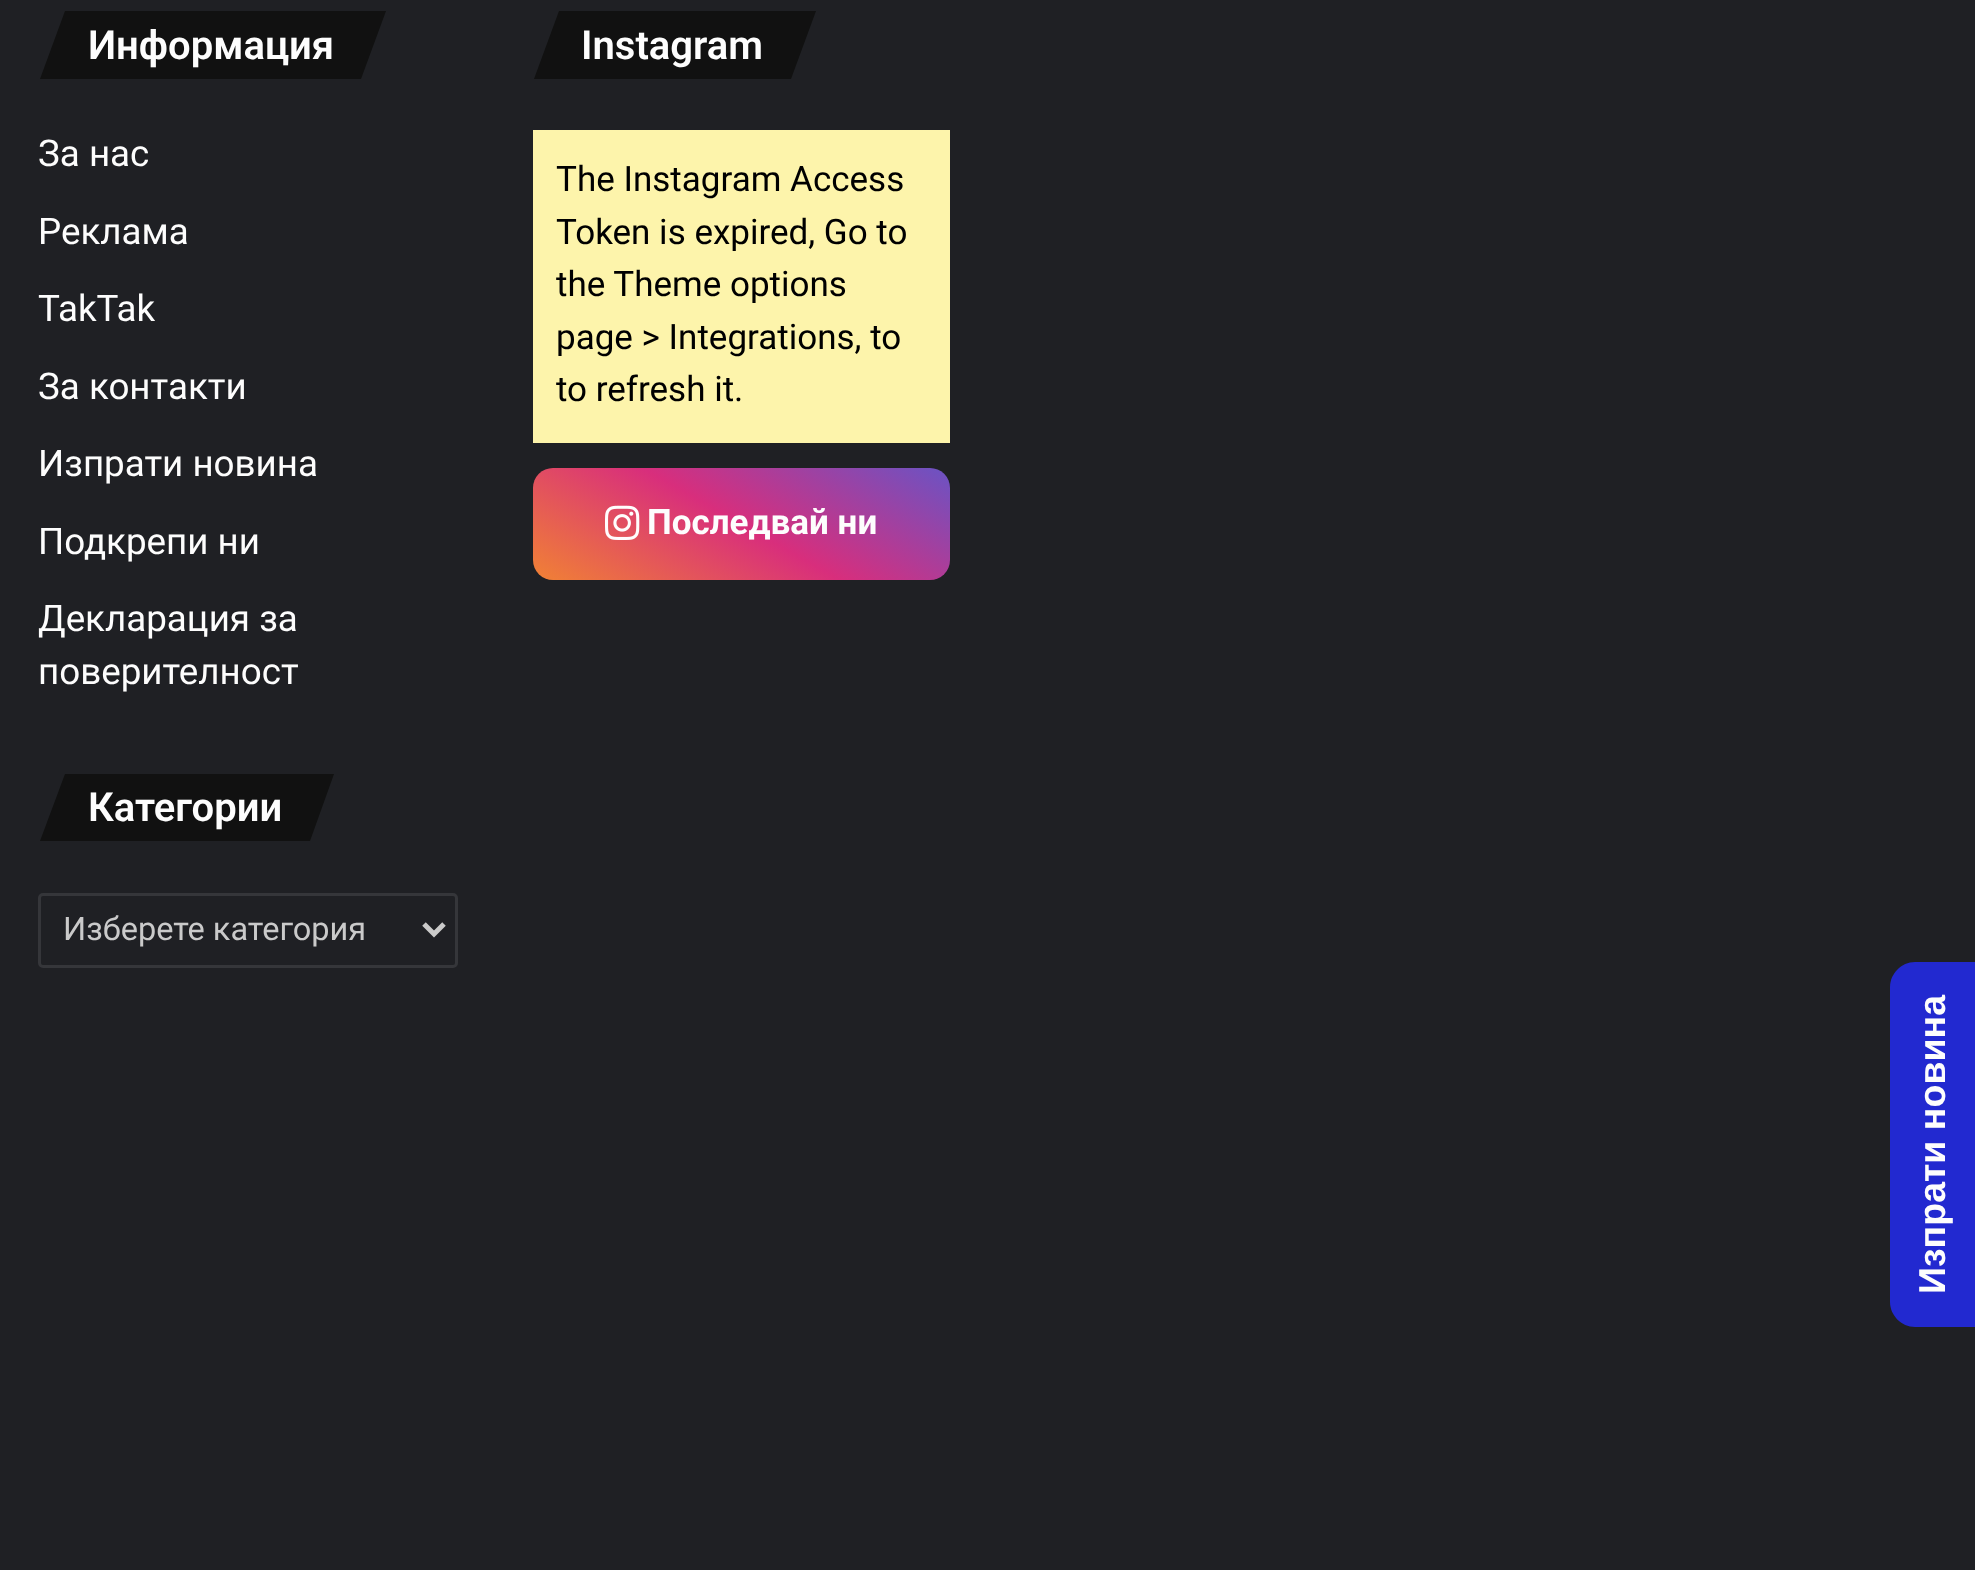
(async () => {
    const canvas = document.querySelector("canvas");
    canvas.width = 1975;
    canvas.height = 1570;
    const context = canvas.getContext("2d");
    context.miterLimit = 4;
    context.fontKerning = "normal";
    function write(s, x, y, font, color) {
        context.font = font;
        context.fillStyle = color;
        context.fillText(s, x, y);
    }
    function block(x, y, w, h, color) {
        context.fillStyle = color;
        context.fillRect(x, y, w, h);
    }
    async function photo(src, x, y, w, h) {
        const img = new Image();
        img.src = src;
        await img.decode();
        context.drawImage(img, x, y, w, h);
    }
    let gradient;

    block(0, 0, 1975, 1570, "rgb(31, 32, 36)");
    context.fillStyle = "rgb(17, 17, 17)";
    context.beginPath();
    context.moveTo(65, 11);
    context.lineTo(386, 11);
    context.lineTo(361, 79);
    context.lineTo(40, 79);
    context.closePath();
    context.fill();
    write("Информация", 88, 59, "600 40px Roboto", "rgb(253, 253, 253)");
    write("За нас", 38, 166, "36.75px Roboto", "rgb(253, 253, 253)");
    write("Реклама", 38, 244, "36.75px Roboto", "rgb(253, 253, 253)");
    write("TakTak", 38, 321, "36.75px Roboto", "rgb(253, 253, 253)");
    write("За контакти", 38, 399, "36.75px Roboto", "rgb(253, 253, 253)");
    write("Изпрати новина", 38, 476, "36.75px Roboto", "rgb(253, 253, 253)");
    write("Подкрепи ни", 38, 554, "36.75px Roboto", "rgb(253, 253, 253)");
    write("Декларация за", 38, 631, "36.75px Roboto", "rgb(253, 253, 253)");
    write("поверителност", 38, 684, "36.75px Roboto", "rgb(253, 253, 253)");
    context.fillStyle = "rgb(17, 17, 17)";
    context.beginPath();
    context.moveTo(65, 774);
    context.lineTo(334, 774);
    context.lineTo(310, 841);
    context.lineTo(40, 841);
    context.closePath();
    context.fill();
    write("Категории", 88, 821, "600 40px Roboto", "rgb(253, 253, 253)");
    context.beginPath();
    context.roundRect(39.5, 894.5, 417, 72, 3.5);
    context.strokeStyle = "rgb(53, 54, 58)";
    context.lineWidth = 3;
    context.stroke();
    context.beginPath();
    context.moveTo(424, 924);
    context.lineTo(434, 934);
    context.lineTo(444, 924);
    context.strokeStyle = "rgb(202, 202, 202)";
    context.lineWidth = 5;
    context.stroke();
    write("Изберете категория", 63, 940, "32.5px Roboto", "rgb(202, 202, 202)");
    context.fillStyle = "rgb(17, 17, 17)";
    context.beginPath();
    context.moveTo(559, 11);
    context.lineTo(816, 11);
    context.lineTo(791, 79);
    context.lineTo(534, 79);
    context.closePath();
    context.fill();
    write("Instagram", 581, 59, "600 40px Roboto", "rgb(253, 253, 253)");
    block(533, 130, 417, 313, "rgb(253, 244, 171)");
    write("The Instagram Access", 556, 191, "35px Roboto", "rgb(0, 0, 0)");
    write("Token is expired, Go to", 556, 244, "35px Roboto", "rgb(0, 0, 0)");
    write("the Theme options", 556, 296, "35px Roboto", "rgb(0, 0, 0)");
    write("page > Integrations, to", 556, 349, "35px Roboto", "rgb(0, 0, 0)");
    write("to refresh it.", 556, 401, "35px Roboto", "rgb(0, 0, 0)");
    gradient = context.createLinearGradient(666, 656, 816, 392);
    gradient.addColorStop(0, "rgb(241, 130, 52)");
    gradient.addColorStop(0.5, "rgb(216, 46, 124)");
    gradient.addColorStop(1, "rgb(106, 83, 196)");
    context.fillStyle = gradient;
    context.beginPath();
    context.roundRect(533, 468, 417, 112, 20);
    context.fill();
    await photo("media/1.png", 605, 505, 35, 35);
    write("Последвай ни", 647, 534, "bold 35px Roboto", "rgb(253, 253, 253)");
    context.fillStyle = "rgb(34, 41, 208)";
    context.beginPath();
    context.moveTo(1890, 1302);
    context.lineTo(1890, 987);
    context.bezierCurveTo(1890, 974, 1901, 962, 1915, 962);
    context.lineTo(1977, 962);
    context.lineTo(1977, 1327);
    context.lineTo(1915, 1327);
    context.bezierCurveTo(1901, 1327, 1890, 1315, 1890, 1302);
    context.closePath();
    context.fill();
    context.font = "bold 37.5px Liberation Sans";
    context.fillStyle = "rgb(253, 253, 253)";
    context.save();
    context.translate(1945, 1294);
    context.rotate(-90 * Math.PI / 180);
    context.fillText("Изпрати новина", 0, 0);
    context.restore();
})();
